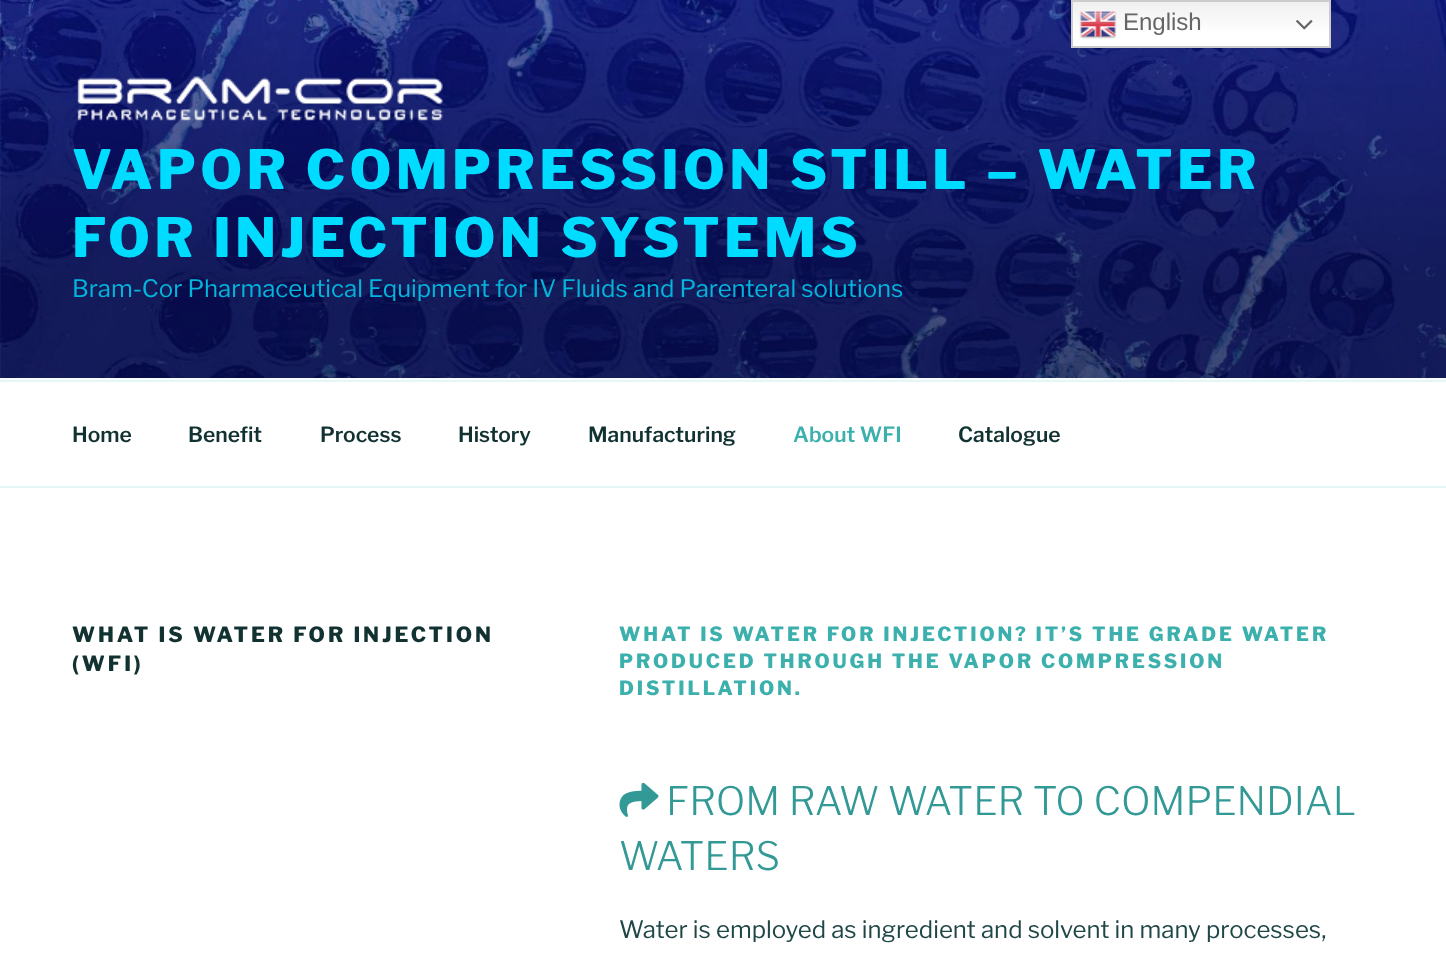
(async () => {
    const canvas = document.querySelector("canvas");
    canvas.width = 1446;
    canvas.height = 964;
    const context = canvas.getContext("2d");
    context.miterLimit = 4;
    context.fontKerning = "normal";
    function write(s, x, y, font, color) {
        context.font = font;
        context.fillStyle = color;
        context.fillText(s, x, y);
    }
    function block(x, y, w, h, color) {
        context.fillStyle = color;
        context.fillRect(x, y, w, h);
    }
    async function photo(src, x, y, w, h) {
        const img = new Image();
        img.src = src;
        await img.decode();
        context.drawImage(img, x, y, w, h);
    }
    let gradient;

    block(0, 0, 1446, 964, "rgb(255, 255, 255)");
    await photo("media/3.png", 0, 0, 1446, 378);
    gradient = context.createLinearGradient(1201, 0, 1201, 48);
    gradient.addColorStop(0, "rgb(239, 239, 239)");
    gradient.addColorStop(0.7, "rgb(255, 255, 255)");
    context.fillStyle = gradient;
    context.fillRect(1073, 2, 256, 44);
    context.strokeStyle = "rgb(204, 204, 204)";
    context.lineWidth = 2;
    context.strokeRect(1072, 1, 258, 46);
    await photo("media/1.png", 1079, 11, 38, 28);
    write("English", 1123, 30, "24px Liberation Sans", "rgb(102, 102, 102)");
    await photo("media/2.png", 1296, 20, 17, 10);
    block(0, 378, 1446, 2, "rgb(247, 252, 252)");
    await photo("media/4.png", 77, 76, 366, 45);
    context.letterSpacing = "4.3px";
    write("VAPOR COMPRESSION STILL – WATER", 72, 189, "100 54px Libre Franklin", "rgb(0, 220, 255)");
    write("FOR INJECTION SYSTEMS", 72, 257, "100 54px Libre Franklin", "rgb(0, 220, 255)");
    context.letterSpacing = "0px";
    write("Bram-Cor Pharmaceutical Equipment for IV Fluids and Parenteral solutions", 72, 297, "100 24px 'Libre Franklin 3'", "rgb(3, 181, 221)");
    block(0, 380, 1446, 2, "rgb(228, 246, 245)");
    block(0, 486, 1446, 2, "rgb(228, 246, 245)");
    write("Home", 72, 442, "100 21px 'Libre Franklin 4'", "rgb(17, 50, 49)");
    write("Benefit", 188, 442, "100 21px 'Libre Franklin 4'", "rgb(17, 50, 49)");
    write("Process", 320, 442, "100 21px 'Libre Franklin 4'", "rgb(17, 50, 49)");
    write("History", 458, 442, "100 21px 'Libre Franklin 4'", "rgb(17, 50, 49)");
    write("Manufacturing", 588, 442, "100 21px 'Libre Franklin 4'", "rgb(17, 50, 49)");
    write("About WFI", 793, 442, "100 21px 'Libre Franklin 4'", "rgb(59, 176, 172)");
    write("Catalogue", 958, 442, "100 21px 'Libre Franklin 4'", "rgb(17, 50, 49)");
    context.letterSpacing = "2.95px";
    write("WHAT IS WATER FOR INJECTION", 72, 642, "100 21px Libre Franklin", "rgb(17, 50, 49)");
    write("(WFI)", 72, 671, "100 21px Libre Franklin", "rgb(17, 50, 49)");
    context.letterSpacing = "2.9px";
    write("WHAT IS WATER FOR INJECTION? IT’S THE GRADE WATER", 619, 641, "100 19.5px Libre Franklin", "rgb(59, 176, 172)");
    write("PRODUCED THROUGH THE VAPOR COMPRESSION", 619, 668, "100 19.5px Libre Franklin", "rgb(59, 176, 172)");
    write("DISTILLATION.", 619, 695, "100 19.5px Libre Franklin", "rgb(59, 176, 172)");
    await photo("media/5.png", 619, 782, 40, 35);
    context.letterSpacing = "0px";
    write("FROM RAW WATER TO COMPENDIAL", 666, 815, "100 39px 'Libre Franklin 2'", "rgb(51, 153, 150)");
    write("WATERS", 619, 870, "100 39px 'Libre Franklin 2'", "rgb(51, 153, 150)");
    write("Water is employed as ingredient and solvent in many processes,", 619, 938, "100 24px 'Libre Franklin 3'", "rgb(31, 71, 70)");
})();
